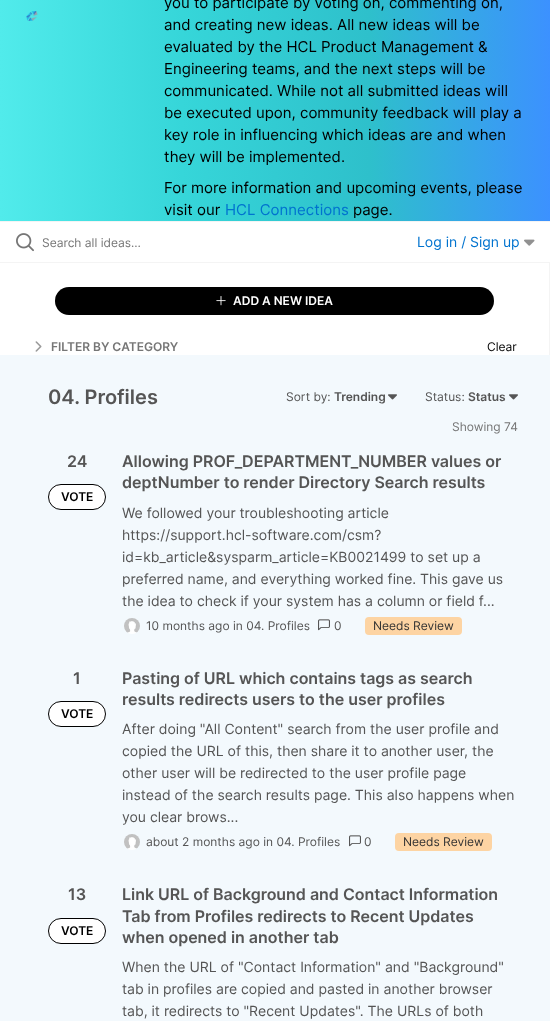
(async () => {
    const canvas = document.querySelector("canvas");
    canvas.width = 550;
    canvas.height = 1021;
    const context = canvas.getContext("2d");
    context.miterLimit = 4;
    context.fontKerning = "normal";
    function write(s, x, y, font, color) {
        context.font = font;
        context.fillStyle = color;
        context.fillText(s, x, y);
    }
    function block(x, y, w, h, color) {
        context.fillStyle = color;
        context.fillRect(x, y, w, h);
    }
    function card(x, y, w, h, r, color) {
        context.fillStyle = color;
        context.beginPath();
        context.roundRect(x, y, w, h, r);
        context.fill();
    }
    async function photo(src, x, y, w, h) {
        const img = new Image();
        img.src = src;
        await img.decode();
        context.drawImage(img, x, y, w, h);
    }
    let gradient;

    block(0, 0, 550, 1021, "rgb(243, 249, 253)");
    gradient = context.createLinearGradient(0, 16, 550, 15);
    gradient.addColorStop(0, "rgb(81, 235, 235)");
    gradient.addColorStop(0.33, "rgb(54, 214, 217)");
    gradient.addColorStop(0.67, "rgb(46, 192, 203)");
    gradient.addColorStop(1, "rgb(60, 145, 255)");
    context.fillStyle = gradient;
    context.fillRect(0, 0, 550, 221);
    block(0, 221, 550, 1, "rgb(244, 244, 244)");
    await photo("media/1.png", 26, 11, 12, 10);
    write("you to participate by voting on, commenting on,", 164, 8, "15px Inter", "rgb(0, 0, 0)");
    write("and creating new ideas. All new ideas will be", 164, 30, "15px Inter", "rgb(0, 0, 0)");
    write("evaluated by the HCL Product Management &", 164, 52, "15px Inter", "rgb(0, 0, 0)");
    write("Engineering teams, and the next steps will be", 164, 74, "15px Inter", "rgb(0, 0, 0)");
    write("communicated. While not all submitted ideas will", 164, 96, "15px Inter", "rgb(0, 0, 0)");
    write("be executed upon, community feedback will play a", 164, 118, "15px Inter", "rgb(0, 0, 0)");
    write("key role in influencing which ideas are and when", 164, 140, "15px Inter", "rgb(0, 0, 0)");
    write("they will be implemented.", 164, 162, "15px Inter", "rgb(0, 0, 0)");
    write("For more information and upcoming events, please", 164, 193, "15px Inter", "rgb(0, 0, 0)");
    write("visit our", 164, 215, "15px Inter", "rgb(0, 0, 0)");
    write("HCL Connections", 225, 215, "15px Inter", "rgb(0, 115, 207)");
    write("page.", 353, 215, "15px Inter", "rgb(0, 0, 0)");
    block(0, 222, 550, 40, "rgb(255, 255, 255)");
    block(0, 262, 550, 1, "rgb(244, 244, 244)");
    await photo("media/2.png", 16, 233, 18, 19);
    write("Search all ideas…", 42, 247, "12px Inter", "rgb(118, 118, 118)");
    write("Log in / Sign up", 417, 247, "14px Inter", "rgb(0, 115, 207)");
    await photo("media/3.png", 524, 239, 11, 7);
    block(0, 263, 549, 92, "rgb(255, 255, 255)");
    block(549, 263, 1, 92, "rgb(244, 244, 244)");
    card(55, 287, 439, 28, 14, "rgb(0, 0, 0)");
    await photo("media/4.png", 216, 296, 10, 10);
    write("ADD A NEW IDEA", 233, 305, "600 12px Inter", "rgb(255, 255, 255)");
    await photo("media/5.png", 35, 341, 7, 11);
    write("FILTER BY CATEGORY", 51, 351, "600 12px Inter", "rgb(118, 118, 118)");
    write("Clear", 487, 351, "12px Inter", "rgb(0, 0, 0)");
    write("04. Profiles", 48, 404, "600 20px Inter", "rgb(85, 85, 85)");
    write("Sort by:", 286, 401, "12px Inter", "rgb(85, 85, 85)");
    write("Trending", 334, 401, "600 12px Inter", "rgb(85, 85, 85)");
    await photo("media/6.png", 388, 394, 9, 6);
    write("Status:", 425, 401, "12px Inter", "rgb(85, 85, 85)");
    write("Status", 468, 401, "600 12px Inter", "rgb(85, 85, 85)");
    await photo("media/6.png", 509, 394, 9, 6);
    write("Showing 74", 452, 431, "12px Inter", "rgb(118, 118, 118)");
    write("24", 67, 467, "600 16px Inter", "rgb(85, 85, 85)");
    context.fillStyle = "rgb(255, 255, 255)";
    context.beginPath();
    context.roundRect(48.5, 484.5, 57, 25, 12.5);
    context.fill();
    context.strokeStyle = "rgb(0, 0, 0)";
    context.stroke();
    write("VOTE", 61, 501, "600 12px Inter", "rgb(0, 0, 0)");
    write("Allowing PROF_DEPARTMENT_NUMBER values or", 122, 467, "600 16px Inter", "rgb(85, 85, 85)");
    write("deptNumber to render Directory Search results", 122, 488, "600 16px Inter", "rgb(85, 85, 85)");
    write("We followed your troubleshooting article", 122, 518, "14px Inter", "rgb(85, 85, 85)");
    write("https://support.hcl-software.com/csm?", 122, 540, "14px Inter", "rgb(85, 85, 85)");
    write("id=kb_article&sysparm_article=KB0021499 to set up a", 122, 562, "14px Inter", "rgb(85, 85, 85)");
    write("preferred name, and everything worked fine. This gave us", 122, 584, "14px Inter", "rgb(85, 85, 85)");
    write("the idea to check if your system has a column or field f...", 122, 606, "14px Inter", "rgb(85, 85, 85)");
    await photo("media/7.png", 124, 618, 16, 16);
    write("10 months ago in 04. Profiles", 146, 630, "12px Inter", "rgb(85, 85, 85)");
    await photo("media/8.png", 318, 619, 12, 12);
    write("0", 334, 630, "12px Inter", "rgb(85, 85, 85)");
    card(365, 617, 97, 18, 4, "rgb(253, 212, 163)");
    write("Needs Review", 373, 630, "12px Inter", "rgb(51, 51, 51)");
    write("1", 73, 684, "600 16px Inter", "rgb(85, 85, 85)");
    context.fillStyle = "rgb(255, 255, 255)";
    context.beginPath();
    context.roundRect(48.5, 701.5, 57, 25, 12.5);
    context.fill();
    context.stroke();
    write("VOTE", 61, 718, "600 12px Inter", "rgb(0, 0, 0)");
    write("Pasting of URL which contains tags as search", 122, 684, "600 16px Inter", "rgb(85, 85, 85)");
    write("results redirects users to the user profiles", 122, 705, "600 16px Inter", "rgb(85, 85, 85)");
    write("After doing \"All Content\" search from the user profile and", 122, 734, "14px Inter", "rgb(85, 85, 85)");
    write("copied the URL of this, then share it to another user, the", 122, 756, "14px Inter", "rgb(85, 85, 85)");
    write("other user will be redirected to the user profile page", 122, 778, "14px Inter", "rgb(85, 85, 85)");
    write("instead of the search results page. This also happens when", 122, 800, "14px Inter", "rgb(85, 85, 85)");
    write("you clear brows...", 122, 822, "14px Inter", "rgb(85, 85, 85)");
    await photo("media/7.png", 124, 834, 16, 16);
    write("about 2 months ago in 04. Profiles", 146, 846, "12px Inter", "rgb(85, 85, 85)");
    await photo("media/8.png", 349, 835, 12, 12);
    write("0", 364, 846, "12px Inter", "rgb(85, 85, 85)");
    card(395, 833, 97, 18, 4, "rgb(253, 212, 163)");
    write("Needs Review", 403, 846, "12px Inter", "rgb(51, 51, 51)");
    write("13", 68, 900, "600 16px Inter", "rgb(85, 85, 85)");
    context.fillStyle = "rgb(255, 255, 255)";
    context.beginPath();
    context.roundRect(48.5, 918.5, 57, 25, 12.5);
    context.fill();
    context.stroke();
    write("VOTE", 61, 935, "600 12px Inter", "rgb(0, 0, 0)");
    write("Link URL of Background and Contact Information", 122, 900, "600 16px Inter", "rgb(85, 85, 85)");
    write("Tab from Profiles redirects to Recent Updates", 122, 922, "600 16px Inter", "rgb(85, 85, 85)");
    write("when opened in another tab", 122, 943, "600 16px Inter", "rgb(85, 85, 85)");
    write("When the URL of \"Contact Information\" and \"Background\"", 122, 972, "14px Inter", "rgb(85, 85, 85)");
    write("tab in profiles are copied and pasted in another browser", 122, 994, "14px Inter", "rgb(85, 85, 85)");
    write("tab, it redirects to \"Recent Updates\". The URLs of both", 122, 1016, "14px Inter", "rgb(85, 85, 85)");
})();
